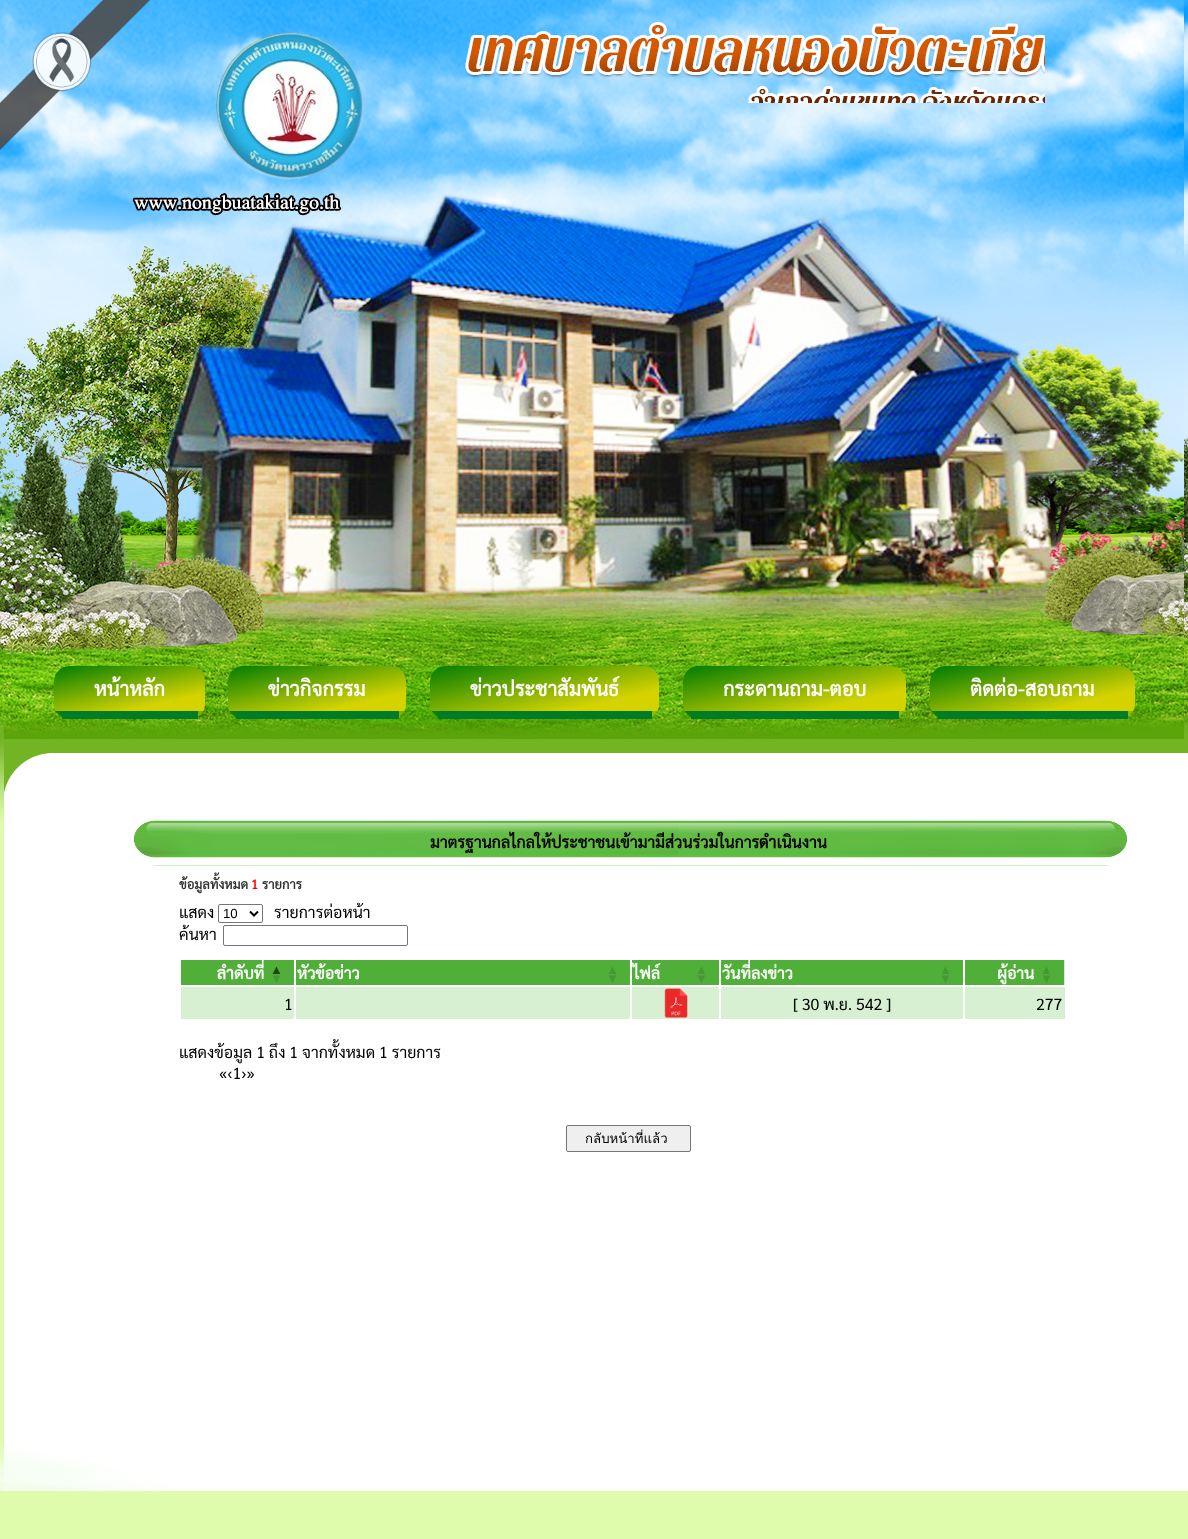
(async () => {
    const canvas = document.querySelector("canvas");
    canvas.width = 1188;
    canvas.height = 1539;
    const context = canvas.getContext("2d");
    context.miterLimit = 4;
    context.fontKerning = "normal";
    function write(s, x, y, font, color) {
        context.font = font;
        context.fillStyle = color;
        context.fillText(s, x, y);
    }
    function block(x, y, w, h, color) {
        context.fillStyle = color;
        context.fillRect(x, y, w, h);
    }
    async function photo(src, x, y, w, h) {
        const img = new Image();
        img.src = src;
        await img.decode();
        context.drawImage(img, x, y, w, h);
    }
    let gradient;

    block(0, 0, 1188, 1539, "rgb(222, 252, 171)");
    await photo("media/2.png", 0, 0, 4, 739);
    await photo("media/3.png", 4, 0, 1180, 739);
    await photo("media/1.png", 0, 0, 150, 150);
    await photo("media/4.png", 215, 31, 149, 149);
    await photo("media/5.png", 465, 22, 580, 81);
    context.save();
    context.beginPath();
    context.roundRect(54, 666, 151, 53, 15);
    context.clip();
    gradient = context.createLinearGradient(138, 726, 121, 651);
    gradient.addColorStop(0.22, "rgb(212, 211, 0)");
    gradient.addColorStop(1, "rgb(0, 124, 3)");
    context.fillStyle = gradient;
    context.beginPath();
    context.roundRect(54, 666, 151, 45, [15, 15, 0, 0]);
    context.fill();
    gradient = context.createLinearGradient(138, 771, 121, 696);
    gradient.addColorStop(0.22, "rgb(212, 211, 0)");
    gradient.addColorStop(1, "rgb(0, 124, 3)");
    context.fillStyle = gradient;
    context.fillRect(54, 711, 151, 7);
    context.restore();
    block(62, 711, 136, 8, "rgb(0, 123, 38)");
    write("หน้าหลัก", 94, 696, "bold 20px Sarabun", "rgb(255, 255, 255)");
    context.save();
    context.beginPath();
    context.roundRect(228, 666, 178, 53, 15);
    context.clip();
    gradient = context.createLinearGradient(326, 729, 308, 648);
    gradient.addColorStop(0.22, "rgb(212, 211, 0)");
    gradient.addColorStop(1, "rgb(0, 124, 3)");
    context.fillStyle = gradient;
    context.beginPath();
    context.roundRect(228, 666, 178, 45, [15, 15, 0, 0]);
    context.fill();
    gradient = context.createLinearGradient(326, 774, 308, 693);
    gradient.addColorStop(0.22, "rgb(212, 211, 0)");
    gradient.addColorStop(1, "rgb(0, 124, 3)");
    context.fillStyle = gradient;
    context.fillRect(228, 711, 178, 7);
    context.restore();
    block(236, 711, 163, 8, "rgb(0, 123, 38)");
    write("ข่าวกิจกรรม", 268, 696, "bold 20px Sarabun", "rgb(255, 255, 255)");
    context.save();
    context.beginPath();
    context.roundRect(430, 666, 229, 53, 15);
    context.clip();
    gradient = context.createLinearGradient(555, 735, 534, 642);
    gradient.addColorStop(0.22, "rgb(212, 211, 0)");
    gradient.addColorStop(1, "rgb(0, 124, 3)");
    context.fillStyle = gradient;
    context.beginPath();
    context.roundRect(430, 666, 229, 45, [15, 15, 0, 0]);
    context.fill();
    gradient = context.createLinearGradient(555, 780, 534, 687);
    gradient.addColorStop(0.22, "rgb(212, 211, 0)");
    gradient.addColorStop(1, "rgb(0, 124, 3)");
    context.fillStyle = gradient;
    context.fillRect(430, 711, 229, 7);
    context.restore();
    block(438, 711, 214, 8, "rgb(0, 123, 38)");
    write("ข่าวประชาสัมพันธ์", 470, 696, "bold 20px Sarabun", "rgb(255, 255, 255)");
    context.save();
    context.beginPath();
    context.roundRect(683, 666, 223, 53, 15);
    context.clip();
    gradient = context.createLinearGradient(805, 734, 784, 643);
    gradient.addColorStop(0.22, "rgb(212, 211, 0)");
    gradient.addColorStop(1, "rgb(0, 124, 3)");
    context.fillStyle = gradient;
    context.beginPath();
    context.roundRect(683, 666, 223, 45, [15, 15, 0, 0]);
    context.fill();
    gradient = context.createLinearGradient(805, 779, 784, 688);
    gradient.addColorStop(0.22, "rgb(212, 211, 0)");
    gradient.addColorStop(1, "rgb(0, 124, 3)");
    context.fillStyle = gradient;
    context.fillRect(683, 711, 223, 7);
    context.restore();
    block(691, 711, 208, 8, "rgb(0, 123, 38)");
    write("กระดานถาม-ตอบ", 723, 696, "bold 20px Sarabun", "rgb(255, 255, 255)");
    context.save();
    context.beginPath();
    context.roundRect(930, 666, 205, 53, 15);
    context.clip();
    gradient = context.createLinearGradient(1043, 732, 1022, 645);
    gradient.addColorStop(0.22, "rgb(212, 211, 0)");
    gradient.addColorStop(1, "rgb(0, 124, 3)");
    context.fillStyle = gradient;
    context.beginPath();
    context.roundRect(930, 666, 205, 45, [15, 15, 0, 0]);
    context.fill();
    gradient = context.createLinearGradient(1043, 777, 1022, 690);
    gradient.addColorStop(0.22, "rgb(212, 211, 0)");
    gradient.addColorStop(1, "rgb(0, 124, 3)");
    context.fillStyle = gradient;
    context.fillRect(930, 711, 205, 7);
    context.restore();
    block(938, 711, 190, 8, "rgb(0, 123, 38)");
    write("ติดต่อ-สอบถาม", 970, 696, "bold 20px Sarabun", "rgb(255, 255, 255)");
    await photo("media/6.png", 1184, 0, 4, 739);
    await photo("media/7.png", 0, 739, 4, 82);
    block(4, 793, 1184, 523, "rgb(255, 255, 255)");
    await photo("media/8.png", 4, 739, 1184, 54);
    await photo("media/9.png", 133, 820, 995, 46);
    write("มาตรฐานกลไกลให้ประชาชนเข้ามามีส่วนร่วมในการดำเนินงาน", 430, 848, "bold 16px Sarabun", "rgb(0, 0, 0)");
    write("ข้อมูลทั้งหมด", 179, 889, "bold 13px Sarabun", "rgb(51, 51, 51)");
    write("1", 251, 889, "bold 13px Sarabun", "rgb(255, 0, 0)");
    write("รายการ", 262, 889, "bold 13px Sarabun", "rgb(51, 51, 51)");
    write("แสดง", 179, 918, "16px Sarabun", "rgb(0, 0, 0)");
    context.beginPath();
    context.roundRect(218.5, 904.5, 44, 18, 1.5);
    context.strokeStyle = "rgb(118, 118, 118)";
    context.stroke();
    context.beginPath();
    context.moveTo(250, 911.5);
    context.lineTo(254, 915.5);
    context.lineTo(258, 911.5);
    context.strokeStyle = "rgb(0, 0, 0)";
    context.lineWidth = 2;
    context.stroke();
    write("10", 223, 918, "13.25px Liberation Sans", "rgb(0, 0, 0)");
    write("รายการต่อหน้า", 274, 918, "16px Sarabun", "rgb(0, 0, 0)");
    write("ค้นหา", 179, 940, "16px Sarabun", "rgb(0, 0, 0)");
    context.beginPath();
    context.roundRect(223.5, 925.5, 184, 20, 1.5);
    context.strokeStyle = "rgb(118, 118, 118)";
    context.lineWidth = 1;
    context.stroke();
    block(181, 960, 113, 25, "rgb(80, 175, 57)");
    write("ลำดับที่", 217, 979, "bold 16px Sarabun", "rgb(255, 255, 255)");
    write("▲", 270, 974, "13px Liberation Sans", "rgb(32, 70, 23)");
    write("▼", 270, 983, "13px Liberation Sans", "rgb(70, 153, 50)");
    block(296, 960, 334, 25, "rgb(80, 175, 57)");
    write("หัวข้อข่าว", 297, 979, "bold 16px Sarabun", "rgb(255, 255, 255)");
    write("▲", 606, 974, "13px Liberation Sans", "rgb(70, 153, 50)");
    write("▼", 606, 983, "13px Liberation Sans", "rgb(70, 153, 50)");
    block(632, 960, 87, 25, "rgb(80, 175, 57)");
    write("ไฟล์", 633, 979, "bold 16px Sarabun", "rgb(255, 255, 255)");
    write("▲", 695, 974, "13px Liberation Sans", "rgb(70, 153, 50)");
    write("▼", 695, 983, "13px Liberation Sans", "rgb(70, 153, 50)");
    block(721, 960, 242, 25, "rgb(80, 175, 57)");
    write("วันที่ลงข่าว", 722, 979, "bold 16px Sarabun", "rgb(255, 255, 255)");
    write("▲", 939, 974, "13px Liberation Sans", "rgb(70, 153, 50)");
    write("▼", 939, 983, "13px Liberation Sans", "rgb(70, 153, 50)");
    block(965, 960, 99, 25, "rgb(80, 175, 57)");
    block(1064, 960, 1, 25, "rgb(222, 226, 230)");
    write("ผู้อ่าน", 997, 979, "bold 16px Sarabun", "rgb(255, 255, 255)");
    write("▲", 1040, 974, "13px Liberation Sans", "rgb(70, 153, 50)");
    write("▼", 1040, 983, "13px Liberation Sans", "rgb(70, 153, 50)");
    block(181, 987, 113, 32, "rgb(215, 240, 210)");
    write("1", 284, 1010, "16px Sarabun", "rgb(0, 0, 0)");
    block(296, 987, 334, 32, "rgb(215, 240, 210)");
    block(632, 987, 87, 32, "rgb(215, 240, 210)");
    await photo("media/10.png", 664, 988, 24, 30);
    block(721, 987, 242, 32, "rgb(215, 240, 210)");
    write("[ 30 พ.ย. 542 ]", 793, 1010, "16px Sarabun", "rgb(0, 0, 0)");
    block(965, 987, 99, 32, "rgb(215, 240, 210)");
    block(1064, 987, 1, 32, "rgb(222, 226, 230)");
    write("277", 1036, 1010, "16px Sarabun", "rgb(0, 0, 0)");
    write("แสดงข้อมูล 1 ถึง 1 จากทั้งหมด 1 รายการ", 179, 1058, "16px Sarabun", "rgb(0, 0, 0)");
    write("«‹1›»", 219, 1079, "16px Sarabun", "rgb(0, 0, 0)");
    context.fillStyle = "rgb(239, 239, 239)";
    context.beginPath();
    context.roundRect(566.5, 1125.5, 124, 26, 1.5);
    context.fill();
    context.stroke();
    write("กลับหน้าที่แล้ว", 585, 1143, "13.25px Loma", "rgb(0, 0, 0)");
    await photo("media/11.png", 0, 1443, 4, 48);
    await photo("media/12.png", 4, 1316, 1184, 175);
})();
